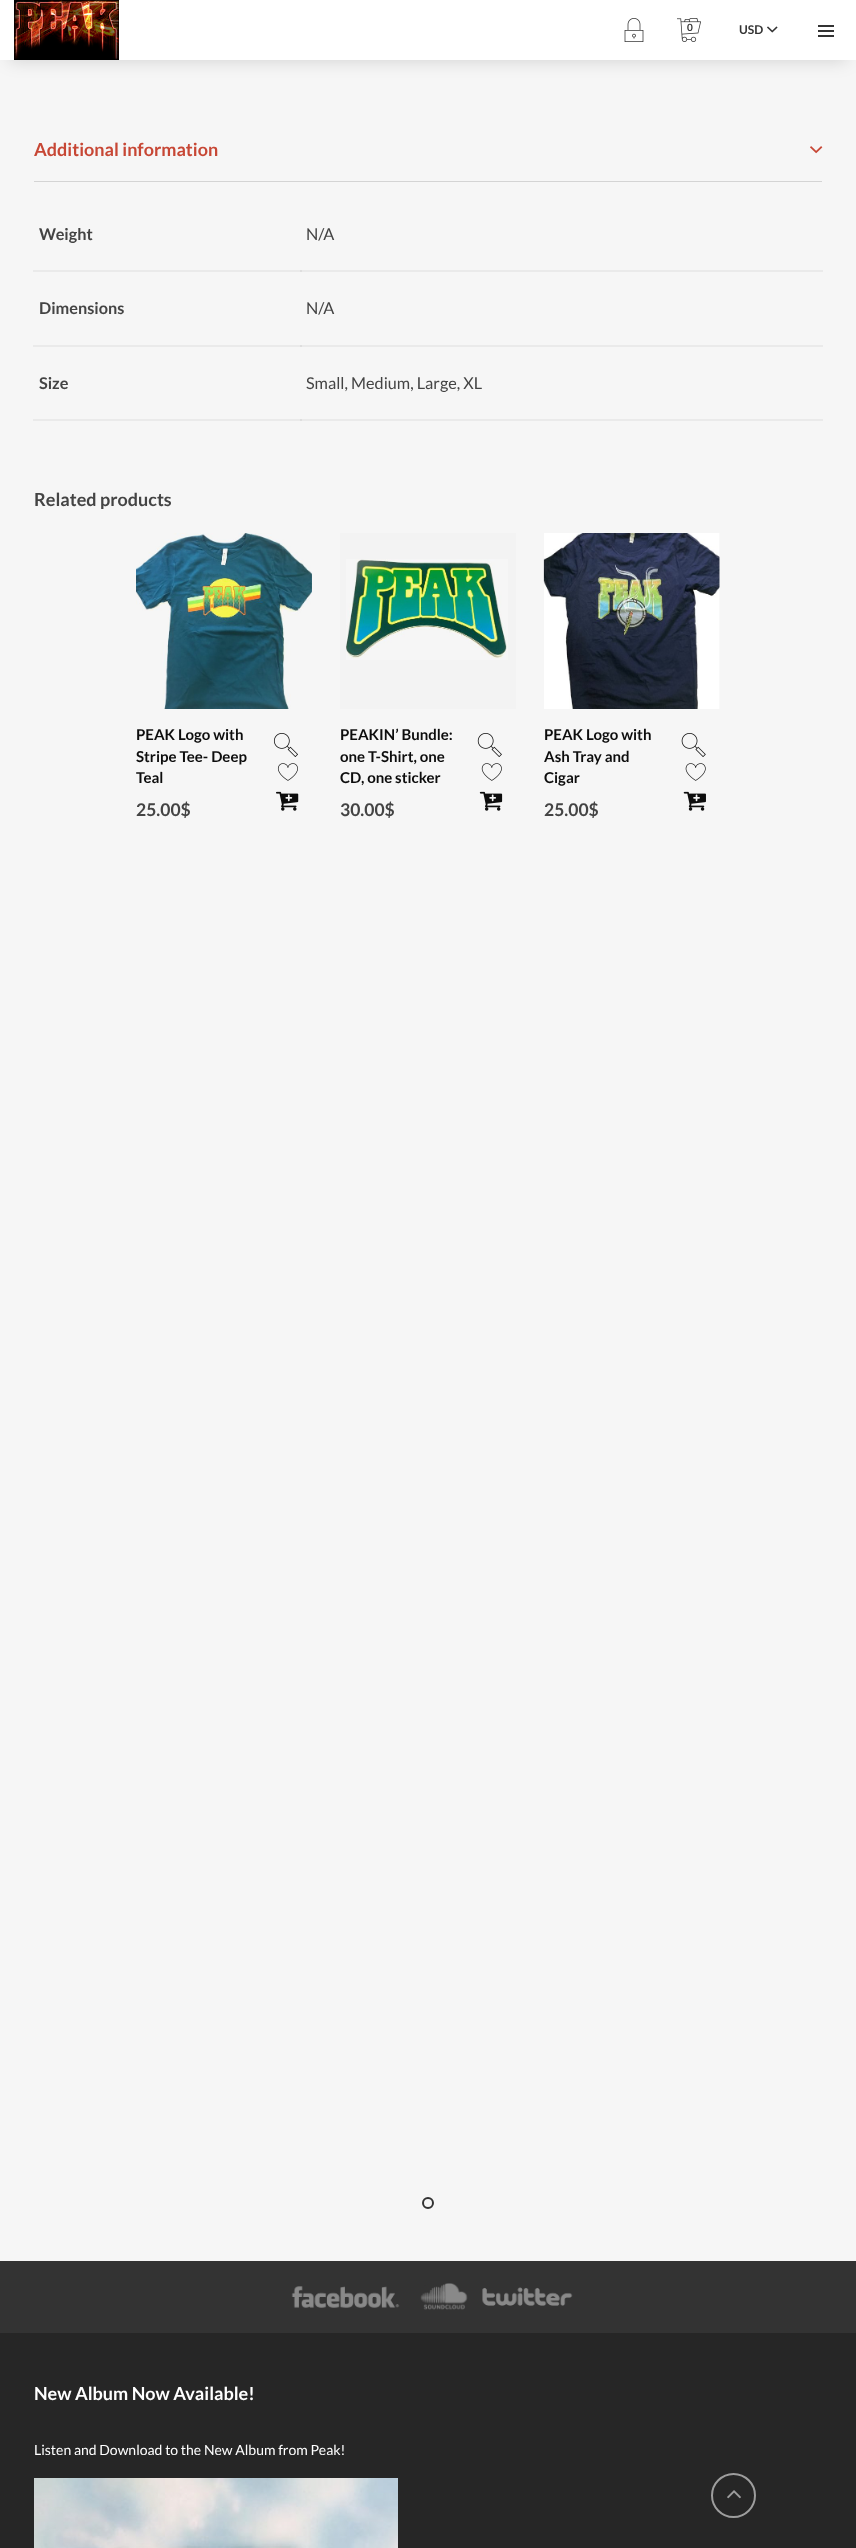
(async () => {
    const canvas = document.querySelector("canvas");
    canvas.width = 856;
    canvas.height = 2548;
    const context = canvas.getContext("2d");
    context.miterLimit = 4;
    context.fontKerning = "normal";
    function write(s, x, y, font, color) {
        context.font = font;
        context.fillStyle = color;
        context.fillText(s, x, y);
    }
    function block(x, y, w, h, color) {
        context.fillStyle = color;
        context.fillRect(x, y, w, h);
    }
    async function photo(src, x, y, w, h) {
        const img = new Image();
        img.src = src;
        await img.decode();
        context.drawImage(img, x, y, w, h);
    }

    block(0, 0, 856, 2548, "rgb(38, 38, 38)");
    block(0, 60, 856, 2201, "rgb(246, 246, 246)");
    context.fillStyle = "rgba(0, 0, 0, 0.14)";
    context.filter = "blur(8.5px)";
    context.beginPath();
    context.rect(9, 19, 838, 42);
    context.fill();
    context.filter = "none";
    block(0, 0, 856, 60, "rgb(255, 255, 255)");
    await photo("media/1.png", 14, 0, 105, 60);
    await photo("media/2.png", 624, 18, 20, 24);
    await photo("media/3.png", 677, 18, 24, 24);
    write("0", 687, 31, "bold 10px Lato", "rgb(51, 51, 51)");
    write("USD", 739, 34, "bold 12px Lato", "rgb(51, 51, 51)");
    await photo("media/4.png", 767, 26, 11, 7);
    block(818, 25, 16, 2, "rgb(51, 51, 51)");
    block(818, 30, 16, 2, "rgb(51, 51, 51)");
    block(818, 35, 16, 2, "rgb(51, 51, 51)");
    block(33, 270, 790, 2, "rgb(234, 234, 234)");
    block(33, 345, 790, 2, "rgb(234, 234, 234)");
    block(33, 419, 790, 2, "rgb(234, 234, 234)");
    block(34, 181, 788, 1, "rgb(212, 212, 212)");
    write("Additional information", 34, 156, "bold 18px Lato", "rgb(199, 71, 53)");
    await photo("media/5.png", 810, 146, 13, 8);
    write("Weight", 39, 240, "bold 16.25px Lato", "rgb(68, 68, 68)");
    block(300, 270, 2, 2, "rgb(222, 222, 222)");
    write("N/A", 306, 240, "16.25px Lato", "rgb(68, 68, 68)");
    write("Dimensions", 39, 314, "bold 16.25px Lato", "rgb(68, 68, 68)");
    block(300, 345, 2, 2, "rgb(222, 222, 222)");
    write("N/A", 306, 314, "16.25px Lato", "rgb(68, 68, 68)");
    write("Size", 39, 389, "bold 16.25px Lato", "rgb(68, 68, 68)");
    block(300, 419, 2, 2, "rgb(222, 222, 222)");
    write("Small, Medium, Large, XL", 306, 389, "16.25px Lato", "rgb(68, 68, 68)");
    write("Related products", 34, 506, "bold 18px Lato", "rgb(68, 68, 68)");
    await photo("media/6.png", 136, 533, 176, 176);
    write("PEAK Logo with", 136, 740, "bold 15px Lato", "rgb(13, 13, 13)");
    write("Stripe Tee- Deep", 136, 762, "bold 15px Lato", "rgb(13, 13, 13)");
    write("Teal", 136, 783, "bold 15px Lato", "rgb(13, 13, 13)");
    write("25.00$", 136, 816, "bold 17.5px Lato", "rgb(68, 68, 68)");
    await photo("media/7.png", 273, 733, 25, 24);
    await photo("media/8.png", 277, 763, 21, 18);
    await photo("media/9.png", 276, 791, 23, 20);
    block(340, 533, 176, 176, "rgb(243, 243, 243)");
    await photo("media/10.png", 346, 559, 162, 101);
    write("PEAKIN’ Bundle:", 340, 740, "bold 15px Lato", "rgb(13, 13, 13)");
    write("one T-Shirt, one", 340, 762, "bold 15px Lato", "rgb(13, 13, 13)");
    write("CD, one sticker", 340, 783, "bold 15px Lato", "rgb(13, 13, 13)");
    write("30.00$", 340, 816, "bold 17.5px Lato", "rgb(68, 68, 68)");
    await photo("media/11.png", 477, 733, 25, 24);
    await photo("media/12.png", 481, 763, 21, 18);
    await photo("media/13.png", 479, 791, 24, 20);
    block(719, 533, 1, 176, "rgb(243, 243, 243)");
    await photo("media/14.png", 543, 533, 177, 176);
    write("PEAK Logo with", 544, 740, "bold 15px Lato", "rgb(13, 13, 13)");
    write("Ash Tray and", 544, 762, "bold 15px Lato", "rgb(13, 13, 13)");
    write("Cigar", 544, 783, "bold 15px Lato", "rgb(13, 13, 13)");
    write("25.00$", 544, 816, "bold 17.5px Lato", "rgb(68, 68, 68)");
    await photo("media/15.png", 681, 733, 25, 24);
    await photo("media/16.png", 685, 763, 21, 18);
    await photo("media/17.png", 683, 791, 23, 20);
    context.beginPath();
    context.arc(428, 2203, 5, 0, Math.PI * 2);
    context.strokeStyle = "rgb(51, 51, 51)";
    context.lineWidth = 2;
    context.stroke();
    block(0, 2261, 856, 72, "rgb(51, 51, 51)");
    await photo("media/18.png", 291, 2286, 109, 22);
    await photo("media/19.png", 420, 2283, 48, 27);
    await photo("media/20.png", 482, 2287, 91, 19);
    write("New Album Now Available!", 34, 2400, "bold 18px Lato", "rgb(255, 255, 255)");
    write("Listen and Download to the New Album from Peak!", 34, 2455, "14px Lato", "rgb(255, 255, 255)");
    await photo("media/21.png", 34, 2478, 364, 70);
    context.beginPath();
    context.arc(733.5, 2495.5, 21.5, 0, Math.PI * 2);
    context.strokeStyle = "rgb(157, 157, 157)";
    context.stroke();
    await photo("media/22.png", 727, 2490, 14, 9);
})();
